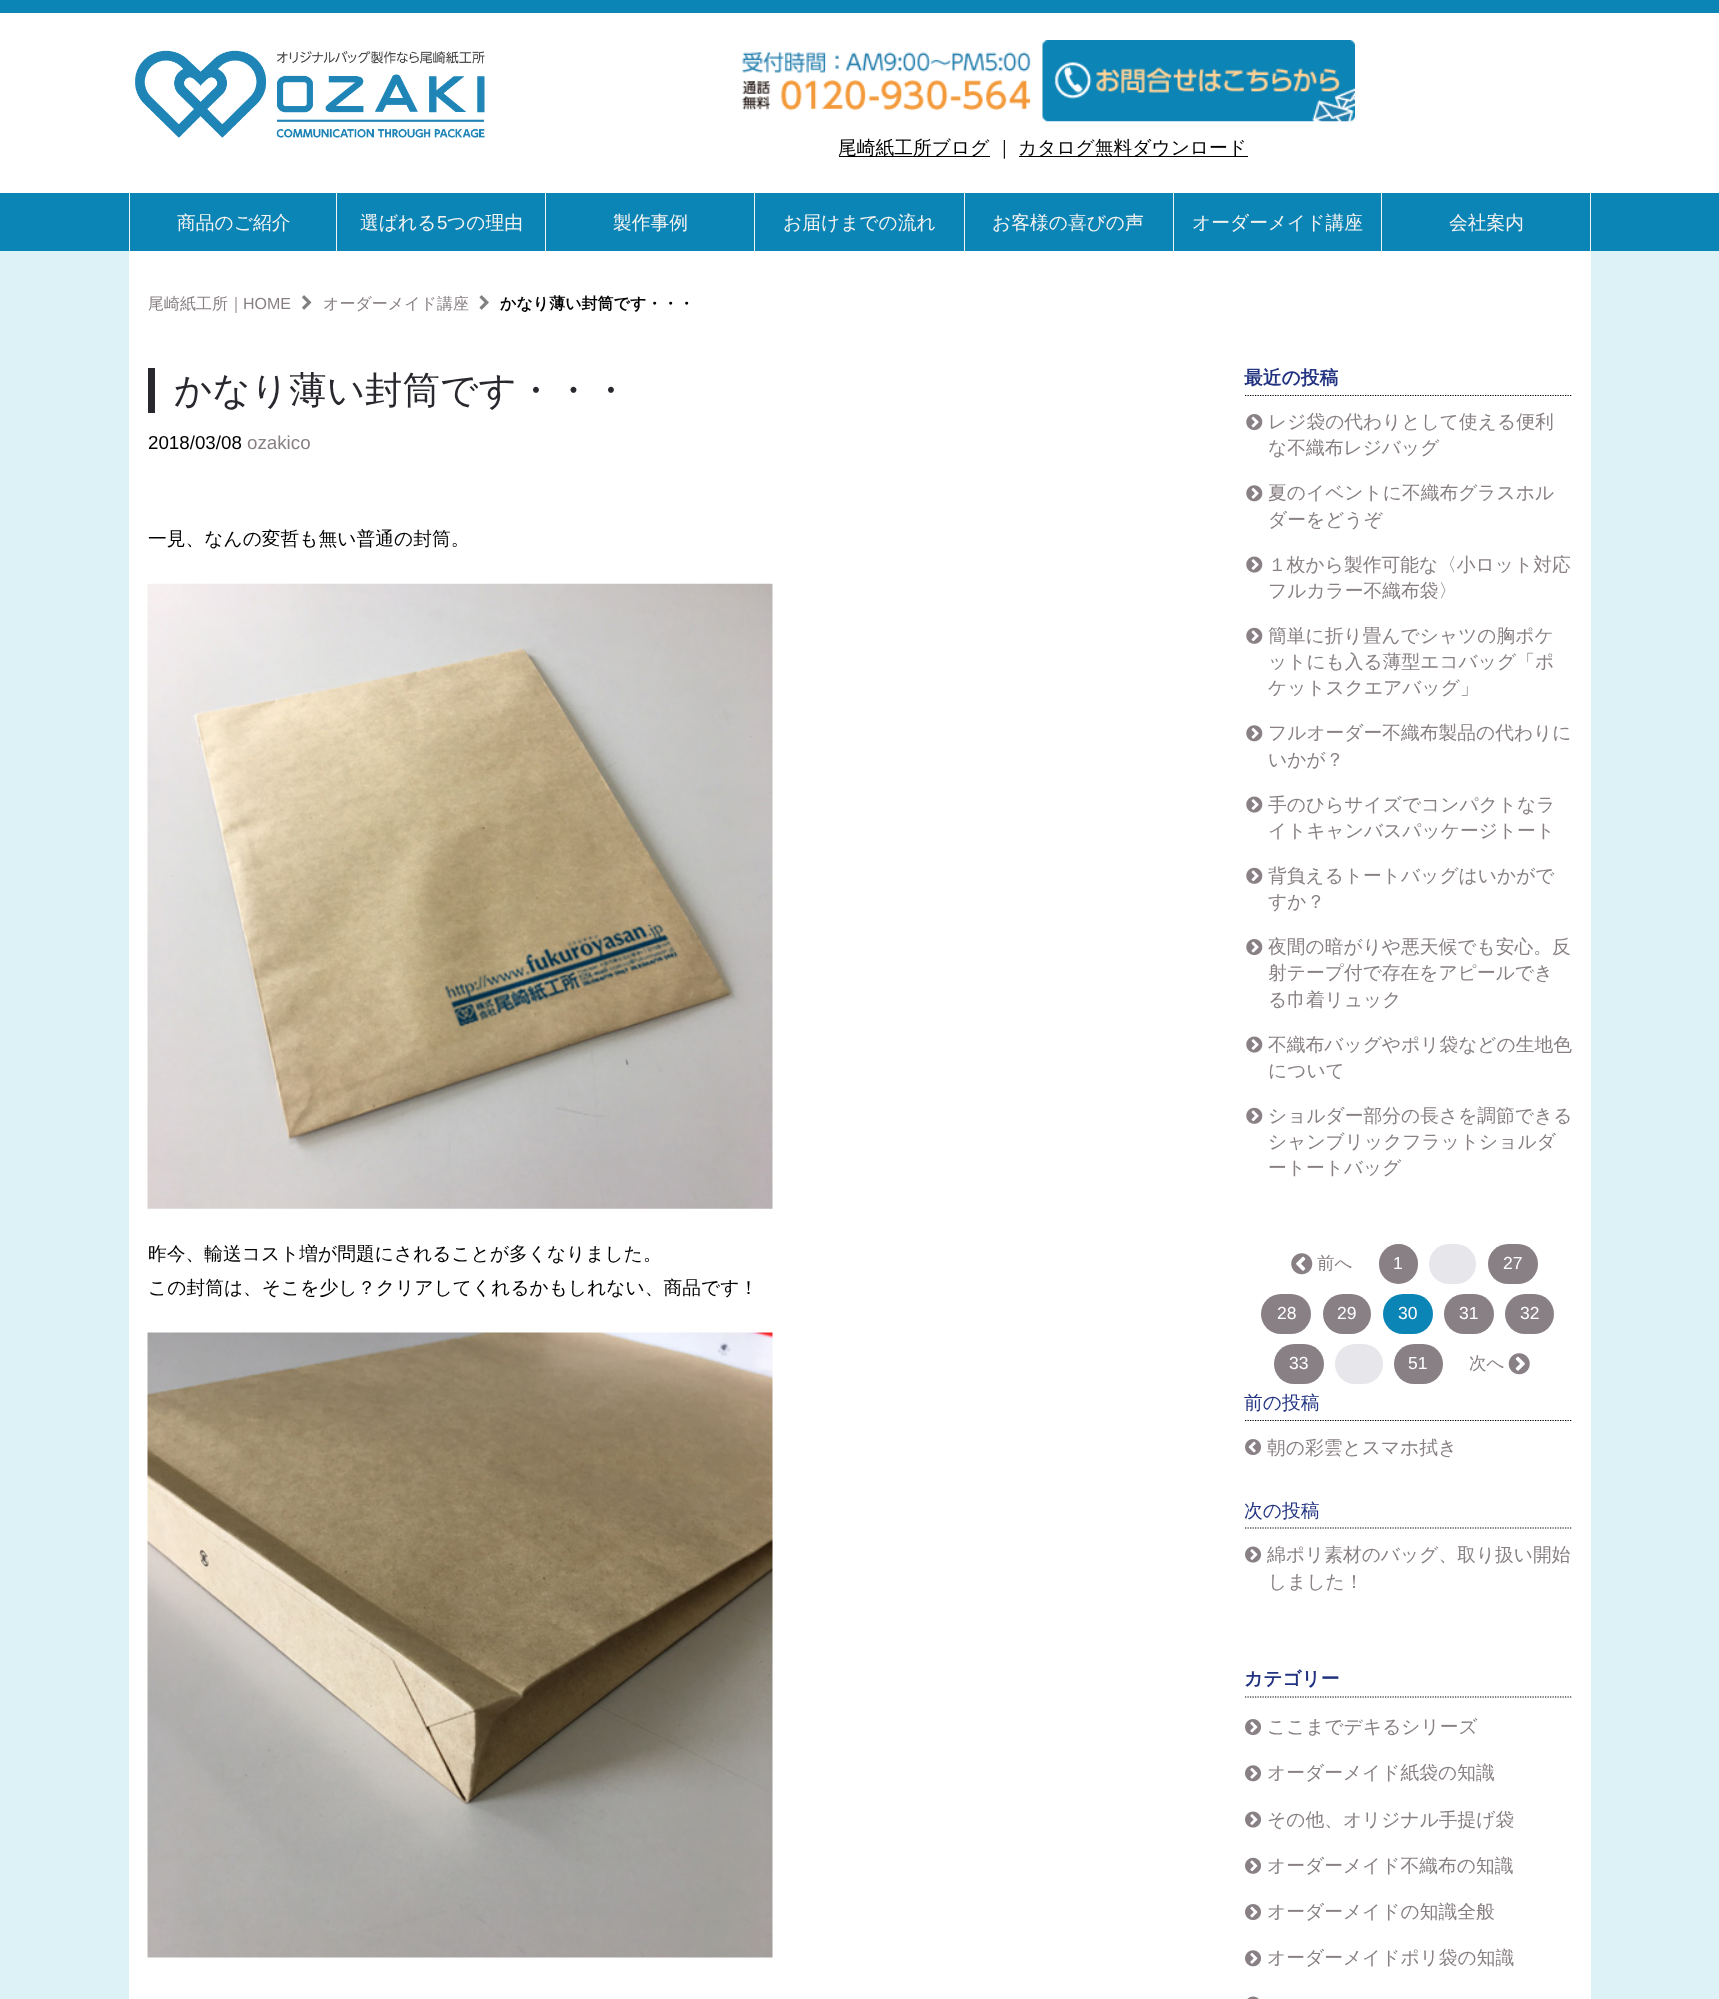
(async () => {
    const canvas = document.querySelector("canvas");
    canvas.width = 1719;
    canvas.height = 1999;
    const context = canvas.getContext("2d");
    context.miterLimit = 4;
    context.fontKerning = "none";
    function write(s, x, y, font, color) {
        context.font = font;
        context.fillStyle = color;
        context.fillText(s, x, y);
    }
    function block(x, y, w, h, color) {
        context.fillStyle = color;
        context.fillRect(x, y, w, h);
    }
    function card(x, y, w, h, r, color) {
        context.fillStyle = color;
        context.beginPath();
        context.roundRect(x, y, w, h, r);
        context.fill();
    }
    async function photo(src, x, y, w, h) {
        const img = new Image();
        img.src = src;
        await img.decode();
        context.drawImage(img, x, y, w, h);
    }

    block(0, 0, 1719, 1999, "rgb(255, 255, 255)");
    block(0, 0, 1719, 13, "rgb(11, 132, 182)");
    await photo("media/1.png", 135, 50, 350, 88);
    await photo("media/2.png", 742, 51, 289, 60);
    await photo("media/3.png", 1042, 40, 313, 82);
    block(839, 156, 151, 1, "rgb(0, 0, 0)");
    write("尾崎紙工所ブログ", 838, 154, "500 18.75px WenQuanYi Zen Hei", "rgb(0, 0, 0)");
    write("｜", 995, 154, "500 18.75px WenQuanYi Zen Hei", "rgb(0, 0, 0)");
    block(1019, 156, 229, 1, "rgb(0, 0, 0)");
    write("カタログ無料ダウンロード", 1018, 154, "500 18.75px WenQuanYi Zen Hei", "rgb(0, 0, 0)");
    block(0, 193, 1719, 58, "rgb(11, 132, 182)");
    block(336, 193, 1, 58, "rgb(243, 243, 242)");
    block(129, 193, 1, 58, "rgb(243, 243, 242)");
    write("商品のご紹介", 177, 229, "500 18.75px WenQuanYi Zen Hei", "rgb(243, 243, 242)");
    block(545, 193, 1, 58, "rgb(243, 243, 242)");
    write("選ばれる", 360, 229, "500 18.75px WenQuanYi Zen Hei", "rgb(243, 243, 242)");
    write("5", 437, 229, "18.75px Liberation Sans", "rgb(243, 243, 242)");
    write("つの理由", 447, 229, "500 18.75px WenQuanYi Zen Hei", "rgb(243, 243, 242)");
    block(754, 193, 1, 58, "rgb(243, 243, 242)");
    write("製作事例", 613, 229, "500 18.75px WenQuanYi Zen Hei", "rgb(243, 243, 242)");
    block(964, 193, 1, 58, "rgb(243, 243, 242)");
    write("お届けまでの流れ", 783, 229, "500 18.75px WenQuanYi Zen Hei", "rgb(243, 243, 242)");
    block(1173, 193, 1, 58, "rgb(243, 243, 242)");
    write("お客様の喜びの声", 992, 229, "500 18.75px WenQuanYi Zen Hei", "rgb(243, 243, 242)");
    block(1381, 193, 1, 58, "rgb(243, 243, 242)");
    write("オーダーメイド講座", 1192, 229, "500 18.75px WenQuanYi Zen Hei", "rgb(243, 243, 242)");
    block(1590, 193, 1, 58, "rgb(243, 243, 242)");
    write("会社案内", 1449, 229, "500 18.75px WenQuanYi Zen Hei", "rgb(243, 243, 242)");
    block(0, 251, 1719, 1748, "rgb(220, 242, 246)");
    block(129, 251, 1462, 1748, "rgb(255, 255, 255)");
    write("尾崎紙工所｜", 148, 309, "500 16px WenQuanYi Zen Hei", "rgb(136, 128, 132)");
    write("HOME", 243, 309, "16px Liberation Sans", "rgb(136, 128, 132)");
    await photo("media/4.png", 302, 295, 10, 15);
    write("オーダーメイド講座", 323, 309, "500 16px WenQuanYi Zen Hei", "rgb(136, 128, 132)");
    await photo("media/5.png", 479, 295, 10, 15);
    write("かなり薄い封筒です・・・", 500, 309, "bold 16px WenQuanYi Zen Hei", "rgb(0, 0, 0)");
    block(148, 368, 7, 45, "rgb(40, 40, 46)");
    write("かなり薄い封筒です・・・", 174, 403, "500 37.5px WenQuanYi Zen Hei", "rgb(40, 40, 46)");
    write("2018/03/08", 148, 449, "18.75px Liberation Sans", "rgb(0, 0, 0)");
    write("ozakico", 247, 449, "18.75px Liberation Sans", "rgb(136, 128, 132)");
    write("一見、なんの変哲も無い普通の封筒。", 148, 545, "500 18.75px WenQuanYi Zen Hei", "rgb(0, 0, 0)");
    await photo("media/6.png", 147, 583, 626, 626);
    write("昨今、輸送コスト増が問題にされることが多くなりました。", 148, 1260, "500 18.75px WenQuanYi Zen Hei", "rgb(0, 0, 0)");
    write("この封筒は、そこを少し？クリアしてくれるかもしれない、商品です！", 148, 1294, "500 18.75px WenQuanYi Zen Hei", "rgb(0, 0, 0)");
    await photo("media/7.png", 147, 1332, 626, 626);
    context.beginPath();
    context.moveTo(1245, 395.5);
    context.lineTo(1572.5, 395.5);
    context.strokeStyle = "rgb(0, 0, 0)";
    context.lineWidth = 1.2;
    context.setLineDash([1.25, 1.25]);
    context.stroke();
    write("最近の投稿", 1244, 384, "bold 18.75px WenQuanYi Zen Hei", "rgb(33, 51, 128)");
    await photo("media/8.png", 1246, 414, 17, 17);
    write("レジ袋の代わりとして使える便利", 1268, 428, "500 18.75px WenQuanYi Zen Hei", "rgb(136, 128, 132)");
    write("な不織布レジバッグ", 1268, 454, "500 18.75px WenQuanYi Zen Hei", "rgb(136, 128, 132)");
    await photo("media/9.png", 1246, 485, 17, 17);
    write("夏のイベントに不織布グラスホル", 1268, 499, "500 18.75px WenQuanYi Zen Hei", "rgb(136, 128, 132)");
    write("ダーをどうぞ", 1268, 526, "500 18.75px WenQuanYi Zen Hei", "rgb(136, 128, 132)");
    await photo("media/10.png", 1246, 556, 17, 17);
    write("１枚から製作可能な〈小ロット対応", 1268, 571, "500 18.75px WenQuanYi Zen Hei", "rgb(136, 128, 132)");
    write("フルカラー不織布袋〉", 1268, 597, "500 18.75px WenQuanYi Zen Hei", "rgb(136, 128, 132)");
    await photo("media/11.png", 1246, 627, 17, 17);
    write("簡単に折り畳んでシャツの胸ポケ", 1268, 642, "500 18.75px WenQuanYi Zen Hei", "rgb(136, 128, 132)");
    write("ットにも入る薄型エコバッグ「ポ", 1268, 668, "500 18.75px WenQuanYi Zen Hei", "rgb(136, 128, 132)");
    write("ケットスクエアバッグ」", 1268, 694, "500 18.75px WenQuanYi Zen Hei", "rgb(136, 128, 132)");
    await photo("media/9.png", 1246, 725, 17, 17);
    write("フルオーダー不織布製品の代わりに", 1268, 739, "500 18.75px WenQuanYi Zen Hei", "rgb(136, 128, 132)");
    write("いかが？", 1268, 766, "500 18.75px WenQuanYi Zen Hei", "rgb(136, 128, 132)");
    await photo("media/10.png", 1246, 796, 17, 17);
    write("手のひらサイズでコンパクトなラ", 1268, 811, "500 18.75px WenQuanYi Zen Hei", "rgb(136, 128, 132)");
    write("イトキャンバスパッケージトート", 1268, 837, "500 18.75px WenQuanYi Zen Hei", "rgb(136, 128, 132)");
    await photo("media/11.png", 1246, 867, 17, 17);
    write("背負えるトートバッグはいかがで", 1268, 882, "500 18.75px WenQuanYi Zen Hei", "rgb(136, 128, 132)");
    write("すか？", 1268, 908, "500 18.75px WenQuanYi Zen Hei", "rgb(136, 128, 132)");
    await photo("media/8.png", 1246, 939, 17, 17);
    write("夜間の暗がりや悪天候でも安心。反", 1268, 953, "500 18.75px WenQuanYi Zen Hei", "rgb(136, 128, 132)");
    write("射テープ付で存在をアピールでき", 1268, 979, "500 18.75px WenQuanYi Zen Hei", "rgb(136, 128, 132)");
    write("る巾着リュック", 1268, 1006, "500 18.75px WenQuanYi Zen Hei", "rgb(136, 128, 132)");
    await photo("media/10.png", 1246, 1036, 17, 17);
    write("不織布バッグやポリ袋などの生地色", 1268, 1051, "500 18.75px WenQuanYi Zen Hei", "rgb(136, 128, 132)");
    write("について", 1268, 1077, "500 18.75px WenQuanYi Zen Hei", "rgb(136, 128, 132)");
    await photo("media/11.png", 1246, 1107, 17, 17);
    write("ショルダー部分の長さを調節できる", 1268, 1122, "500 18.75px WenQuanYi Zen Hei", "rgb(136, 128, 132)");
    write("シャンブリックフラットショルダ", 1268, 1148, "500 18.75px WenQuanYi Zen Hei", "rgb(136, 128, 132)");
    write("ートートバッグ", 1268, 1174, "500 18.75px WenQuanYi Zen Hei", "rgb(136, 128, 132)");
    await photo("media/12.png", 1291, 1253, 22, 22);
    write("前へ", 1317, 1269, "500 17.5px WenQuanYi Zen Hei", "rgb(136, 128, 132)");
    card(1379, 1244, 39, 40, 19.5, "rgb(136, 128, 132)");
    write("1", 1393, 1269, "17.5px Liberation Sans", "rgb(255, 255, 255)");
    card(1429, 1244, 47, 40, 20, "rgb(231, 231, 235)");
    card(1488, 1244, 50, 40, 20, "rgb(136, 128, 132)");
    write("27", 1503, 1269, "17.5px Liberation Sans", "rgb(255, 255, 255)");
    card(1261, 1294, 50, 40, 20, "rgb(136, 128, 132)");
    write("28", 1277, 1319, "17.5px Liberation Sans", "rgb(255, 255, 255)");
    card(1323, 1294, 48, 40, 20, "rgb(136, 128, 132)");
    write("29", 1337, 1319, "17.5px Liberation Sans", "rgb(255, 255, 255)");
    card(1383, 1294, 50, 40, 20, "rgb(11, 132, 182)");
    write("30", 1398, 1319, "17.5px Liberation Sans", "rgb(255, 255, 255)");
    card(1444, 1294, 50, 40, 20, "rgb(136, 128, 132)");
    write("31", 1459, 1319, "17.5px Liberation Sans", "rgb(255, 255, 255)");
    card(1505, 1294, 49, 40, 20, "rgb(136, 128, 132)");
    write("32", 1520, 1319, "17.5px Liberation Sans", "rgb(255, 255, 255)");
    card(1274, 1344, 50, 40, 20, "rgb(136, 128, 132)");
    write("33", 1289, 1369, "17.5px Liberation Sans", "rgb(255, 255, 255)");
    card(1335, 1344, 48, 40, 20, "rgb(231, 231, 235)");
    card(1394, 1344, 49, 40, 20, "rgb(136, 128, 132)");
    write("51", 1408, 1369, "17.5px Liberation Sans", "rgb(255, 255, 255)");
    write("次へ", 1469, 1369, "500 17.5px WenQuanYi Zen Hei", "rgb(136, 128, 132)");
    await photo("media/13.png", 1508, 1353, 22, 22);
    context.beginPath();
    context.moveTo(1245, 1420.5);
    context.lineTo(1572.5, 1420.5);
    context.stroke();
    write("前の投稿", 1244, 1409, "500 18.75px WenQuanYi Zen Hei", "rgb(33, 51, 128)");
    await photo("media/14.png", 1245, 1439, 16, 16);
    write("朝の彩雲とスマホ拭き", 1267, 1454, "500 18.75px WenQuanYi Zen Hei", "rgb(136, 128, 132)");
    context.beginPath();
    context.moveTo(1245, 1528);
    context.lineTo(1572.5, 1528);
    context.stroke();
    write("次の投稿", 1244, 1517, "500 18.75px WenQuanYi Zen Hei", "rgb(33, 51, 128)");
    await photo("media/15.png", 1245, 1546, 17, 17);
    write("綿ポリ素材のバッグ、取り扱い開始", 1267, 1561, "500 18.75px WenQuanYi Zen Hei", "rgb(136, 128, 132)");
    write("しました！", 1268, 1588, "500 18.75px WenQuanYi Zen Hei", "rgb(136, 128, 132)");
    context.beginPath();
    context.moveTo(1245, 1697);
    context.lineTo(1572.5, 1697);
    context.stroke();
    write("カテゴリー", 1244, 1685, "bold 18.75px WenQuanYi Zen Hei", "rgb(33, 51, 128)");
    await photo("media/16.png", 1245, 1719, 16, 16);
    write("ここまでデキるシリーズ", 1267, 1733, "500 18.75px WenQuanYi Zen Hei", "rgb(136, 128, 132)");
    await photo("media/17.png", 1245, 1765, 17, 17);
    write("オーダーメイド紙袋の知識", 1267, 1779, "500 18.75px WenQuanYi Zen Hei", "rgb(136, 128, 132)");
    await photo("media/15.png", 1245, 1811, 17, 17);
    write("その他、オリジナル手提げ袋", 1267, 1826, "500 18.75px WenQuanYi Zen Hei", "rgb(136, 128, 132)");
    await photo("media/18.png", 1245, 1857, 16, 17);
    write("オーダーメイド不織布の知識", 1267, 1872, "500 18.75px WenQuanYi Zen Hei", "rgb(136, 128, 132)");
    await photo("media/16.png", 1245, 1904, 16, 16);
    write("オーダーメイドの知識全般", 1267, 1918, "500 18.75px WenQuanYi Zen Hei", "rgb(136, 128, 132)");
    await photo("media/17.png", 1245, 1950, 17, 17);
    write("オーダーメイドポリ袋の知識", 1267, 1964, "500 18.75px WenQuanYi Zen Hei", "rgb(136, 128, 132)");
    await photo("media/19.png", 1247, 1996, 12, 3);
})();
